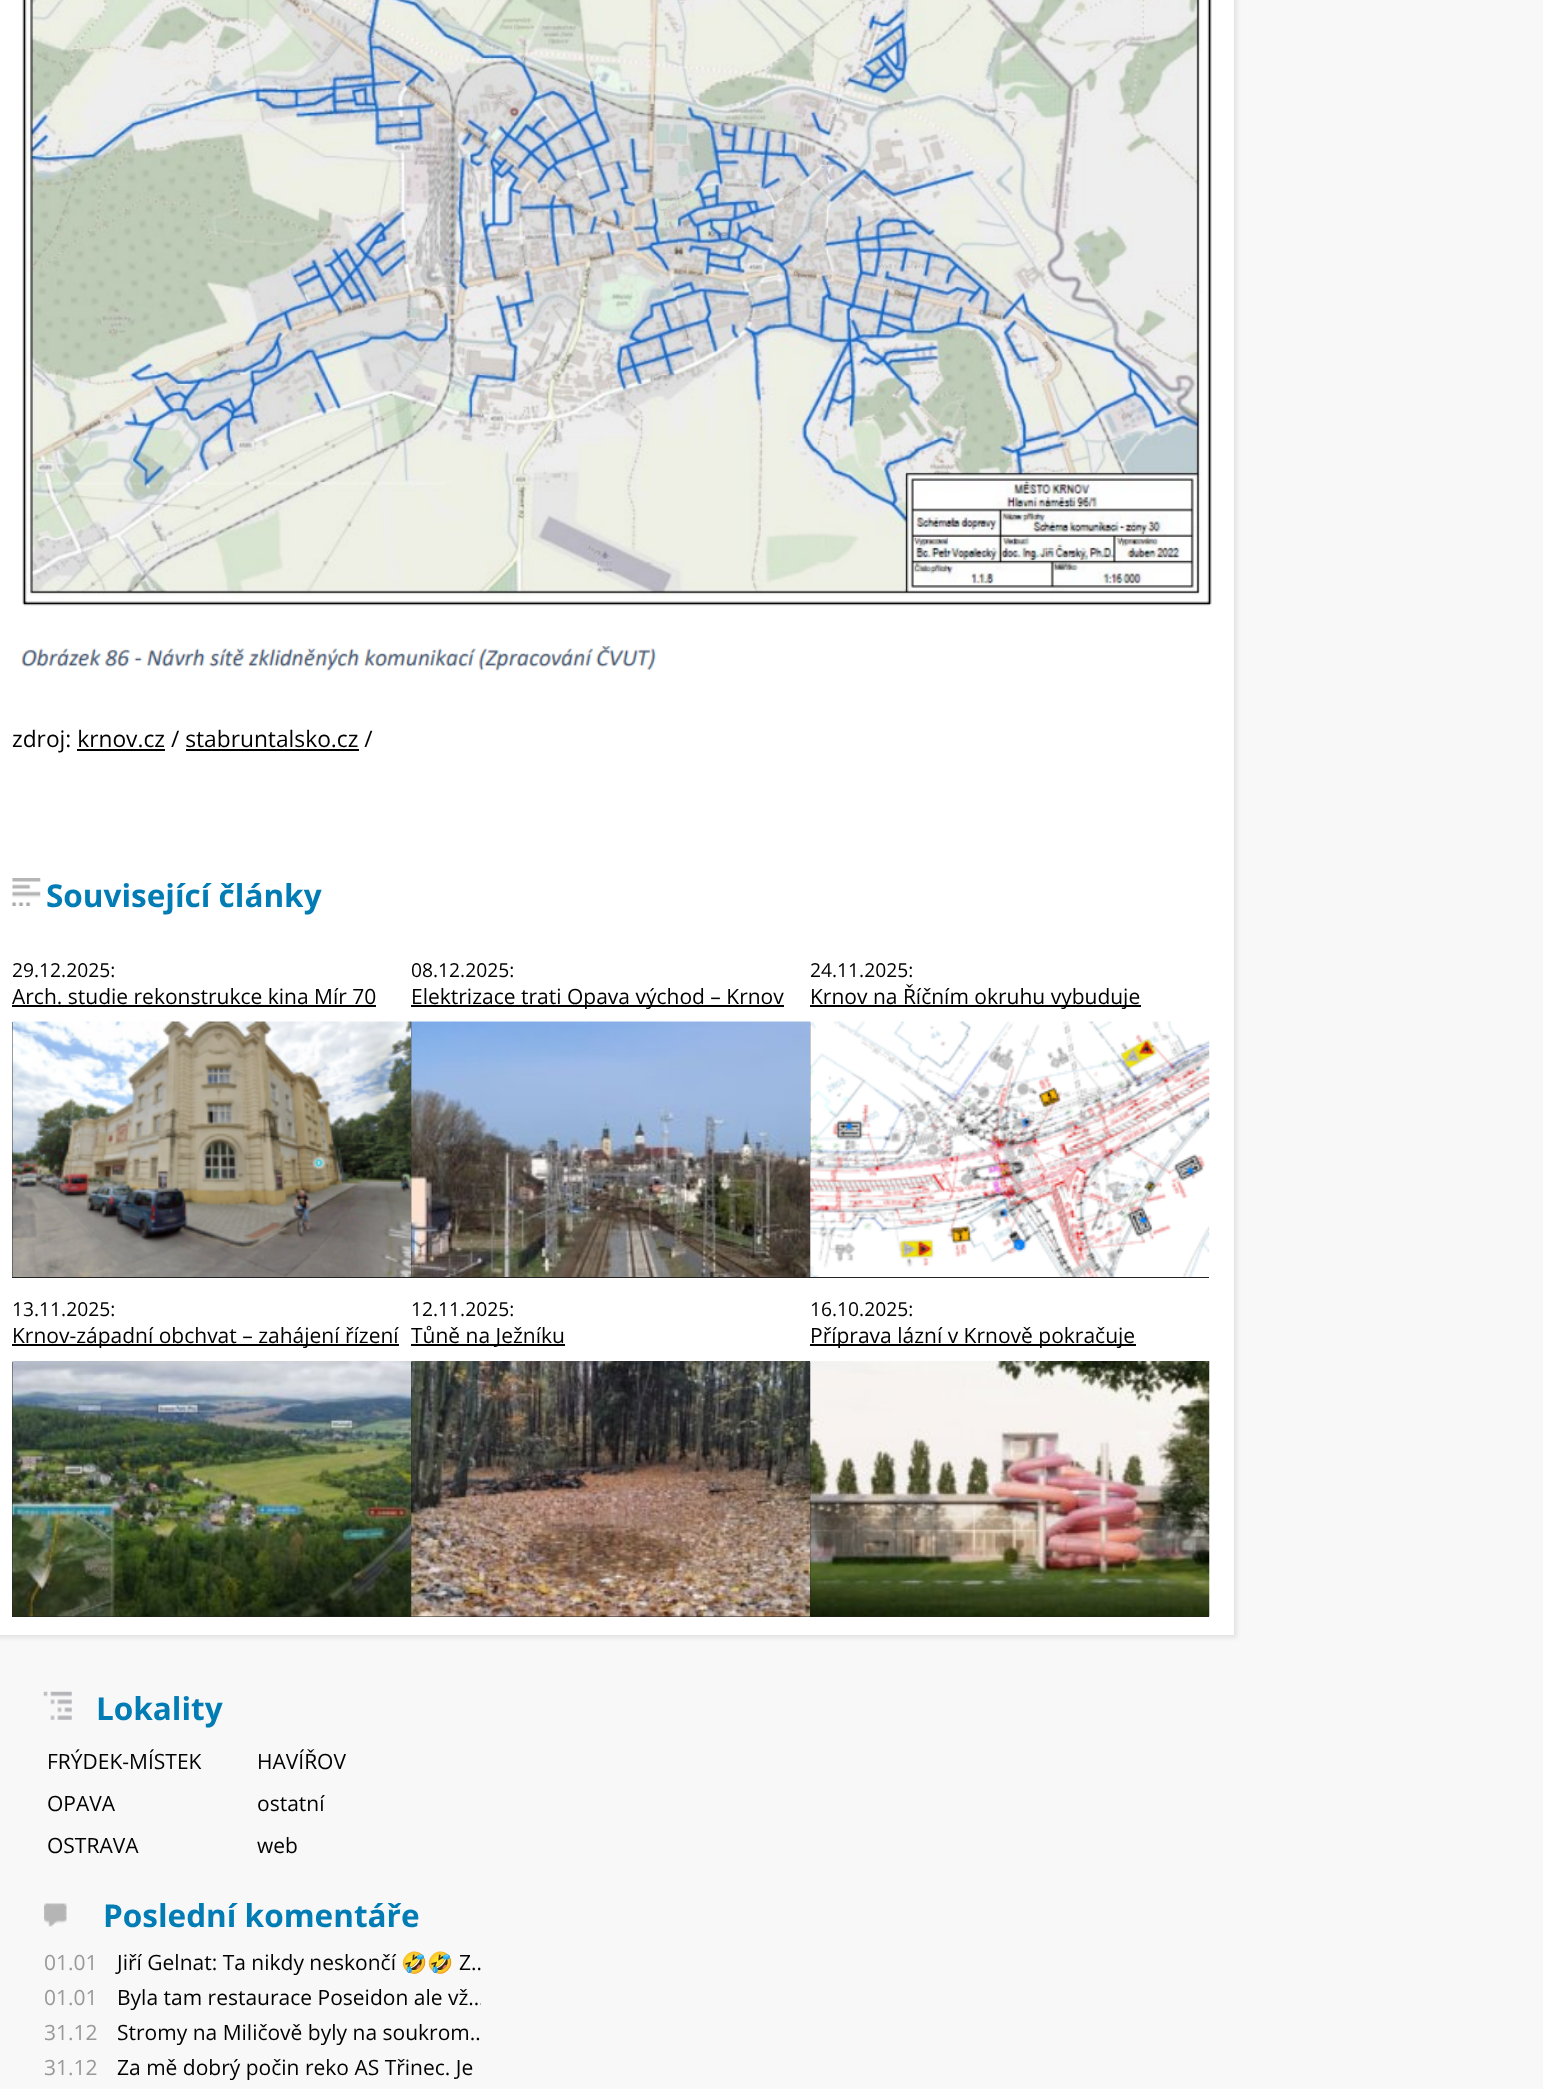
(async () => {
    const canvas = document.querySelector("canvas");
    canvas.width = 1543;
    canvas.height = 2089;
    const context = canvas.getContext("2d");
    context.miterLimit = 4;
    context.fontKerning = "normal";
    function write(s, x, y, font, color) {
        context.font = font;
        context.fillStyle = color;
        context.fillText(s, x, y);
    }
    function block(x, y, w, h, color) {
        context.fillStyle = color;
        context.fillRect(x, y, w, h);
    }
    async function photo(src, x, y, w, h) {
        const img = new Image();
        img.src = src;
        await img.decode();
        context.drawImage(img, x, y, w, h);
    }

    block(0, 0, 1543, 2089, "rgb(248, 248, 248)");
    context.fillStyle = "rgba(50, 50, 50, 0.1)";
    context.filter = "blur(2px)";
    context.beginPath();
    context.rect(-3, -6, 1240, 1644);
    context.fill();
    context.filter = "none";
    block(0, 0, 1234, 1635, "rgb(255, 255, 255)");
    await photo("media/1.png", 21, 0, 1191, 671);
    write("zdroj: krnov.cz / stabruntalsko.cz /", 12, 747, "22.75px Open Sans", "rgb(0, 0, 0)");
    block(77, 749, 88, 2, "rgb(0, 0, 0)");
    block(186, 749, 173, 2, "rgb(0, 0, 0)");
    await photo("media/2.png", 12, 878, 29, 28);
    write("Související články", 46, 907, "bold 31.5px Open Sans", "rgb(1, 124, 180)");
    write("29.12.2025:", 12, 977, "19.25px Open Sans", "rgb(0, 0, 0)");
    write("Arch. studie rekonstrukce kina Mír 70", 12, 1004, "21px Open Sans", "rgb(0, 0, 0)");
    block(12, 1005, 364, 2, "rgb(0, 0, 0)");
    block(12, 1022, 399, 256, "rgb(34, 34, 34)");
    await photo("media/3.png", 12, 1021, 400, 256);
    write("08.12.2025:", 411, 977, "19.25px Open Sans", "rgb(0, 0, 0)");
    block(411, 1005, 373, 2, "rgb(0, 0, 0)");
    write("Elektrizace trati Opava východ – Krnov", 411, 1004, "21px Open Sans", "rgb(0, 0, 0)");
    block(411, 1022, 399, 256, "rgb(34, 34, 34)");
    await photo("media/4.png", 411, 1021, 400, 256);
    write("24.11.2025:", 810, 977, "19.25px Open Sans", "rgb(0, 0, 0)");
    block(810, 1005, 331, 2, "rgb(0, 0, 0)");
    write("Krnov na Říčním okruhu vybuduje", 810, 1004, "21px Open Sans", "rgb(0, 0, 0)");
    block(810, 1022, 399, 256, "rgb(34, 34, 34)");
    await photo("media/5.png", 810, 1021, 400, 256);
    write("13.11.2025:", 12, 1316, "19.25px Open Sans", "rgb(0, 0, 0)");
    block(12, 1344, 387, 2, "rgb(0, 0, 0)");
    write("Krnov-západní obchvat – zahájení řízení", 12, 1343, "21px Open Sans", "rgb(0, 0, 0)");
    block(12, 1362, 399, 255, "rgb(34, 34, 34)");
    await photo("media/6.png", 12, 1361, 400, 256);
    write("12.11.2025:", 411, 1316, "19.25px Open Sans", "rgb(0, 0, 0)");
    block(411, 1344, 154, 2, "rgb(0, 0, 0)");
    write("Tůně na Ježníku", 411, 1343, "21px Open Sans", "rgb(0, 0, 0)");
    block(411, 1362, 399, 255, "rgb(34, 34, 34)");
    await photo("media/7.png", 411, 1361, 400, 256);
    write("16.10.2025:", 810, 1316, "19.25px Open Sans", "rgb(0, 0, 0)");
    block(810, 1344, 326, 2, "rgb(0, 0, 0)");
    write("Příprava lázní v Krnově pokračuje", 810, 1343, "21px Open Sans", "rgb(0, 0, 0)");
    block(810, 1362, 399, 255, "rgb(34, 34, 34)");
    await photo("media/8.png", 810, 1361, 400, 256);
    await photo("media/9.png", 43, 1691, 29, 29);
    write("Lokality", 96, 1720, "bold 31.5px Open Sans", "rgb(1, 124, 180)");
    write("FRÝDEK-MÍSTEK", 47, 1769, "21px Open Sans", "rgb(0, 0, 0)");
    write("HAVÍŘOV", 257, 1769, "21px Open Sans", "rgb(0, 0, 0)");
    write("OPAVA", 47, 1811, "21px Open Sans", "rgb(0, 0, 0)");
    write("ostatní", 257, 1811, "21px Open Sans", "rgb(0, 0, 0)");
    write("OSTRAVA", 47, 1853, "21px Open Sans", "rgb(0, 0, 0)");
    write("web", 257, 1853, "21px Open Sans", "rgb(0, 0, 0)");
    await photo("media/10.png", 44, 1903, 23, 24);
    write("Poslední komentáře", 103, 1927, "bold 31.5px Open Sans", "rgb(1, 124, 180)");
    write("01.01", 44, 1970, "21px Open Sans", "rgb(153, 153, 153)");
    write("Jiří Gelnat: Ta nikdy neskončí", 117, 1970, "21px Open Sans", "rgb(0, 0, 0)");
    write("🤣🤣", 401, 1970, "21px Noto Color Emoji", "rgb(0, 0, 0)");
    context.save();
    context.beginPath();
    context.rect(44, 1948, 437, 35);
    context.clip();
    write("Z…", 459, 1970, "21px Open Sans", "rgb(0, 0, 0)");
    context.restore();
    write("01.01", 44, 2005, "21px Open Sans", "rgb(153, 153, 153)");
    context.save();
    context.beginPath();
    context.rect(44, 1983, 437, 35);
    context.clip();
    write("Byla tam restaurace Poseidon ale vž…", 117, 2005, "21px Open Sans", "rgb(0, 0, 0)");
    context.restore();
    write("31.12", 44, 2040, "21px Open Sans", "rgb(153, 153, 153)");
    context.save();
    context.beginPath();
    context.rect(44, 2018, 437, 35);
    context.clip();
    write("Stromy na Miličově byly na soukrom…", 117, 2040, "21px Open Sans", "rgb(0, 0, 0)");
    context.restore();
    write("31.12", 44, 2075, "21px Open Sans", "rgb(153, 153, 153)");
    write("Za mě dobrý počin reko AS Třinec. Je", 117, 2075, "21px Open Sans", "rgb(0, 0, 0)");
})();
